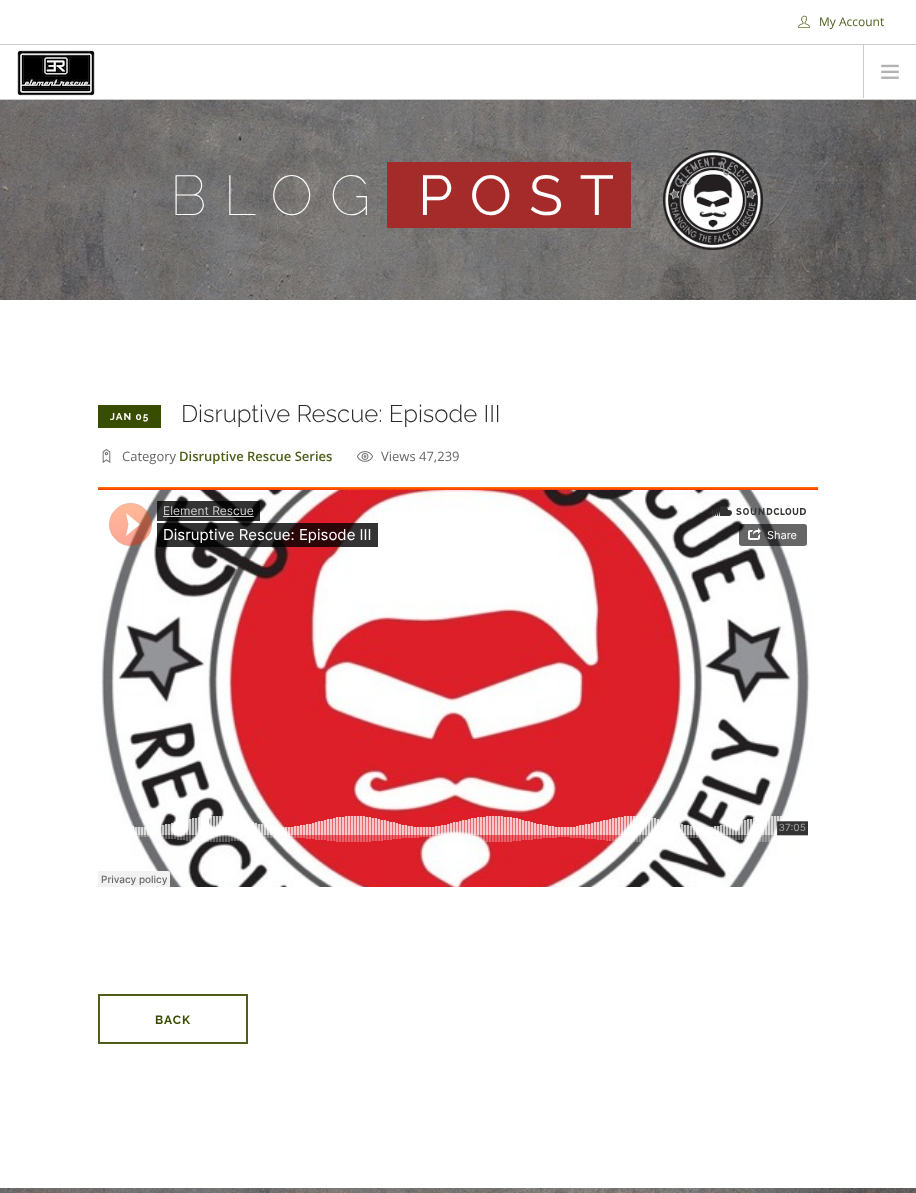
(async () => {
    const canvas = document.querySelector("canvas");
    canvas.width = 916;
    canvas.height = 1193;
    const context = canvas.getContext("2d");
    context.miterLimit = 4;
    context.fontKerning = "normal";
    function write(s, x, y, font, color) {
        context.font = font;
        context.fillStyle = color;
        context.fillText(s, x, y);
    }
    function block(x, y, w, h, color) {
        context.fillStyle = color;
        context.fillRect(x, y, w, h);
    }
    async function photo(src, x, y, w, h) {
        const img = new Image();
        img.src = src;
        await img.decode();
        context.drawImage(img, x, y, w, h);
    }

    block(0, 0, 916, 1193, "rgb(255, 255, 255)");
    block(0, 44, 916, 1, "rgb(204, 204, 204)");
    await photo("media/1.png", 798, 15, 12, 13);
    write("My Account", 819, 26, "12px Open Sans", "rgb(77, 95, 26)");
    block(0, 99, 916, 1, "rgb(204, 204, 204)");
    await photo("media/2.png", 17, 50, 78, 46);
    block(863, 45, 1, 53, "rgb(204, 204, 204)");
    await photo("media/3.png", 881, 64, 18, 15);
    await photo("media/4.png", 0, 100, 916, 200);
    context.letterSpacing = "17px";
    write("BLOG", 170, 215, "100 56px Raleway", "rgb(255, 255, 255)");
    block(387, 162, 244, 66, "rgb(165, 42, 42)");
    await photo("media/5.png", 663, 150, 100, 100);
    write("POST", 418, 215, "56px Raleway", "rgb(255, 255, 255)");
    block(98, 405, 63, 23, "rgb(57, 77, 0)");
    context.letterSpacing = "1px";
    write("JAN 05", 110, 420, "bold 10px Raleway", "rgb(255, 255, 255)");
    context.letterSpacing = "0px";
    write("Disruptive Rescue: Episode III", 181, 422, "300 24px Raleway", "rgb(41, 41, 41)");
    await photo("media/6.png", 102, 449, 9, 14);
    write("Category", 122, 461, "13px Open Sans", "rgb(102, 102, 102)");
    write("Disruptive Rescue Series", 179, 461, "600 13px Open Sans", "rgb(77, 95, 26)");
    await photo("media/7.png", 357, 451, 16, 11);
    write("Views 47,239", 381, 461, "13px Open Sans", "rgb(102, 102, 102)");
    await photo("media/8.png", 98, 487, 720, 400);
    context.strokeStyle = "rgb(77, 95, 26)";
    context.lineWidth = 2;
    context.strokeRect(99, 995, 148, 48);
    context.letterSpacing = "1px";
    write("BACK", 155, 1024, "bold 12px Raleway", "rgb(57, 77, 0)");
    await photo("media/9.png", 0, 1188, 916, 5);
})();
